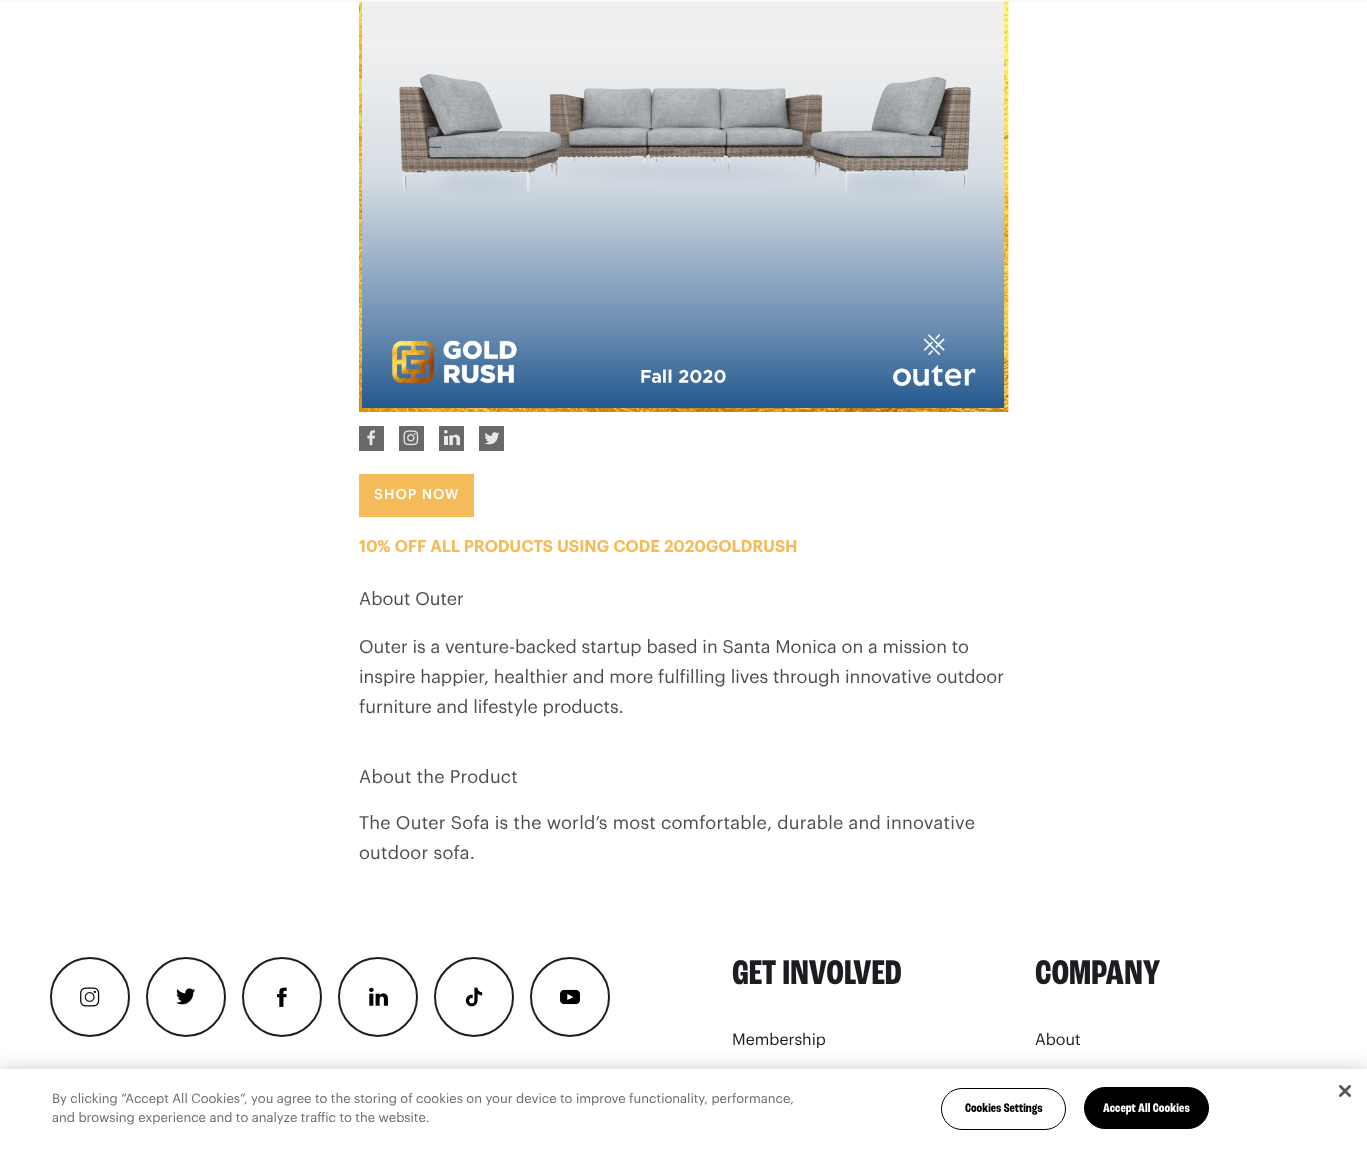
(async () => {
    const canvas = document.querySelector("canvas");
    canvas.width = 1367;
    canvas.height = 1151;
    const context = canvas.getContext("2d");
    context.miterLimit = 4;
    context.fontKerning = "normal";
    function write(s, x, y, font, color) {
        context.font = font;
        context.fillStyle = color;
        context.fillText(s, x, y);
    }
    function block(x, y, w, h, color) {
        context.fillStyle = color;
        context.fillRect(x, y, w, h);
    }
    async function photo(src, x, y, w, h) {
        const img = new Image();
        img.src = src;
        await img.decode();
        context.drawImage(img, x, y, w, h);
    }

    block(0, 0, 1367, 1151, "rgb(255, 255, 255)");
    block(0, 0, 1367, 2, "rgb(250, 248, 245)");
    await photo("media/1.png", 359, 2, 650, 410);
    block(359, 426, 25, 25, "rgb(105, 105, 105)");
    await photo("media/2.png", 367, 430, 9, 16);
    block(399, 426, 25, 25, "rgb(105, 105, 105)");
    await photo("media/3.png", 403, 430, 16, 16);
    block(439, 426, 25, 25, "rgb(105, 105, 105)");
    await photo("media/4.png", 444, 430, 16, 16);
    block(479, 426, 25, 25, "rgb(105, 105, 105)");
    await photo("media/5.png", 484, 432, 16, 13);
    block(359, 474, 115, 43, "rgb(246, 187, 89)");
    context.letterSpacing = "1px";
    write("SHOP NOW", 374, 499, "500 14px Graphik", "rgb(255, 255, 255)");
    context.letterSpacing = "0.25px";
    write("10% OFF ALL PRODUCTS USING CODE 2020GOLDRUSH", 359, 552, "bold 16px Graphik", "rgb(246, 187, 89)");
    context.letterSpacing = "0px";
    write("About Outer", 359, 605, "18px Graphik", "rgb(78, 78, 78)");
    write("Outer is a venture-backed startup based in Santa Monica on a mission to", 359, 653, "18px Graphik", "rgb(78, 78, 78)");
    write("inspire happier, healthier and more fulfilling lives through innovative outdoor", 359, 683, "18px Graphik", "rgb(78, 78, 78)");
    write("furniture and lifestyle products.", 359, 713, "18px Graphik", "rgb(78, 78, 78)");
    context.letterSpacing = "0.25px";
    write("About the Product", 359, 783, "18px Graphik", "rgb(78, 78, 78)");
    write("The Outer Sofa is the world’s most comfortable, durable and innovative", 359, 829, "18px Graphik", "rgb(78, 78, 78)");
    write("outdoor sofa.", 359, 859, "18px Graphik", "rgb(78, 78, 78)");
    context.beginPath();
    context.arc(90, 997, 39, 0, Math.PI * 2);
    context.strokeStyle = "rgb(29, 28, 33)";
    context.lineWidth = 2;
    context.stroke();
    await photo("media/6.png", 80, 987, 20, 20);
    context.beginPath();
    context.arc(186, 997, 39, 0, Math.PI * 2);
    context.stroke();
    await photo("media/7.png", 176, 988, 20, 17);
    context.beginPath();
    context.arc(282, 997, 39, 0, Math.PI * 2);
    context.stroke();
    await photo("media/8.png", 277, 987, 10, 20);
    context.beginPath();
    context.arc(378, 997, 39, 0, Math.PI * 2);
    context.stroke();
    await photo("media/9.png", 369, 987, 19, 19);
    context.beginPath();
    context.arc(474, 997, 39, 0, Math.PI * 2);
    context.stroke();
    await photo("media/10.png", 465, 987, 18, 20);
    context.beginPath();
    context.arc(570, 997, 39, 0, Math.PI * 2);
    context.stroke();
    await photo("media/11.png", 560, 989, 20, 16);
    context.letterSpacing = "0px";
    write("GET INVOLVED", 732, 984, "bold 36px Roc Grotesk", "rgb(29, 28, 33)");
    write("Membership", 732, 1045, "16px Graphik", "rgb(29, 28, 33)");
    write("COMPANY", 1035, 984, "bold 36px Roc Grotesk", "rgb(29, 28, 33)");
    write("About", 1035, 1045, "16px Graphik", "rgb(29, 28, 33)");
    context.fillStyle = "rgba(0, 0, 0, 0.2)";
    context.filter = "blur(9px)";
    context.beginPath();
    context.rect(0, 1069, 1367, 82);
    context.fill();
    context.filter = "none";
    block(0, 1069, 1367, 82, "rgb(255, 255, 255)");
    write("By clicking “Accept All Cookies”, you agree to the storing of cookies on your device to improve functionality, performance,", 52, 1103, "13px Graphik", "rgb(105, 105, 105)");
    write("and browsing experience and to analyze traffic to the website.", 52, 1122, "13px Graphik", "rgb(105, 105, 105)");
    context.beginPath();
    context.roundRect(941.5, 1088.5, 124, 41, 20.5);
    context.strokeStyle = "rgb(0, 0, 0)";
    context.lineWidth = 1;
    context.stroke();
    write("Cookies Settings", 965, 1112, "bold 13px Roc Grotesk", "rgb(0, 0, 0)");
    context.beginPath();
    context.roundRect(1084.5, 1087.5, 124, 41, 20.5);
    context.fill();
    context.stroke();
    context.letterSpacing = "0.1px";
    write("Accept All Cookies", 1103, 1112, "bold 13px Roc Grotesk", "rgb(255, 255, 255)");
    await photo("media/12.png", 1339, 1085, 12, 12);
})();
